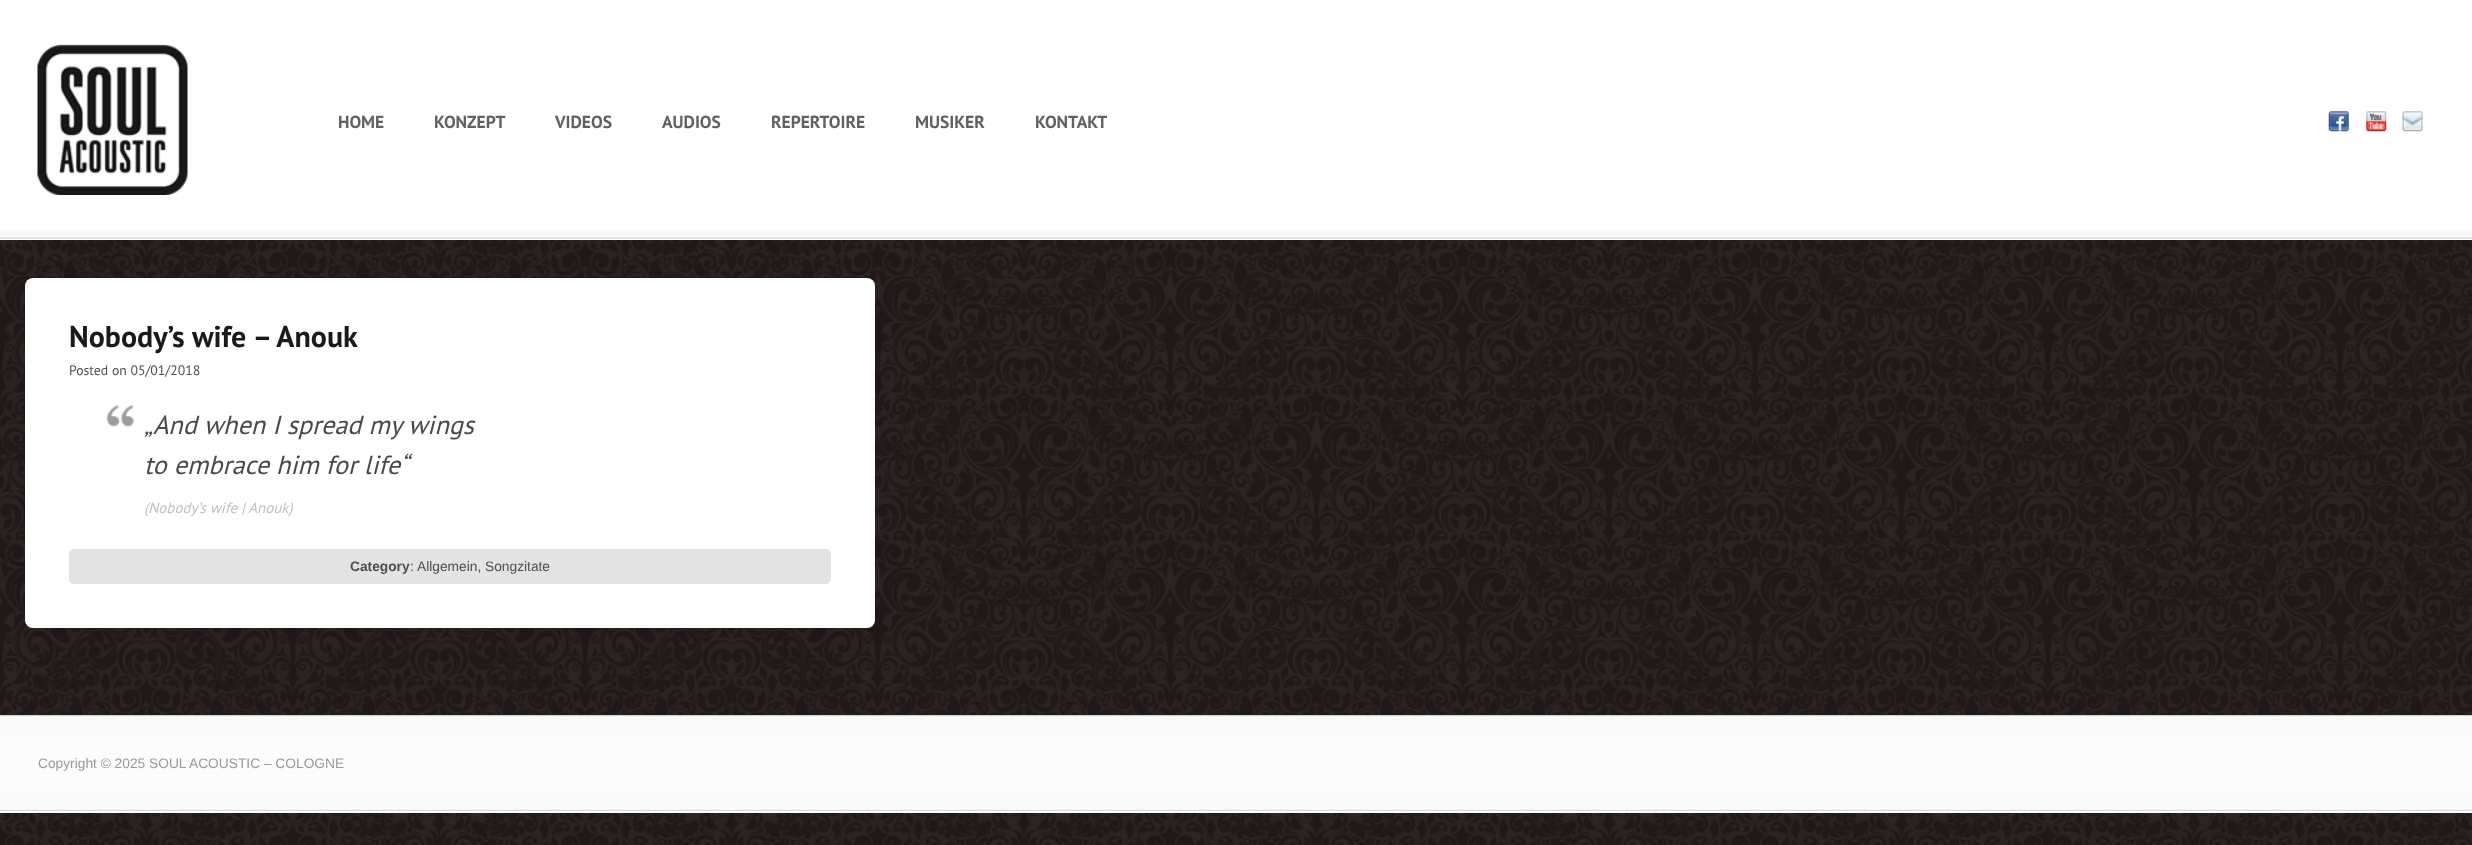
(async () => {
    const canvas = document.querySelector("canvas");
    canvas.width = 2472;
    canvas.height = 845;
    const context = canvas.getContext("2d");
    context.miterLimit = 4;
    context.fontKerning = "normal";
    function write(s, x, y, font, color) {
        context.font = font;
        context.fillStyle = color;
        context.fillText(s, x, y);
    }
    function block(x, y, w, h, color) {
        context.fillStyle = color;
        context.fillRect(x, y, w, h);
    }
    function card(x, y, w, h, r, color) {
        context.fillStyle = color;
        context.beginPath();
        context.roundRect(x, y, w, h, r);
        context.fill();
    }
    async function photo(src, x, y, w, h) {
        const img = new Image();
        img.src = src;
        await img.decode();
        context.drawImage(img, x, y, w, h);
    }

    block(0, 0, 2472, 845, "rgb(67, 51, 51)");
    await photo("media/1.png", 0, 240, 2472, 605);
    block(0, 0, 2472, 240, "rgb(255, 255, 255)");
    await photo("media/2.png", 0, 230, 2472, 9);
    await photo("media/3.png", 37, 44, 151, 151);
    write("HOME", 338, 128, "bold 17.5px PT Sans", "rgb(97, 97, 97)");
    write("KONZEPT", 434, 128, "bold 17.5px PT Sans", "rgb(97, 97, 97)");
    write("VIDEOS", 555, 128, "bold 17.5px PT Sans", "rgb(97, 97, 97)");
    write("AUDIOS", 662, 128, "bold 17.5px PT Sans", "rgb(97, 97, 97)");
    write("REPERTOIRE", 771, 128, "bold 17.5px PT Sans", "rgb(97, 97, 97)");
    write("MUSIKER", 915, 128, "bold 17.5px PT Sans", "rgb(97, 97, 97)");
    write("KONTAKT", 1035, 128, "bold 17.5px PT Sans", "rgb(97, 97, 97)");
    await photo("media/4.png", 2328, 111, 21, 21);
    await photo("media/5.png", 2366, 111, 21, 21);
    await photo("media/6.png", 2402, 111, 21, 21);
    context.fillStyle = "rgba(0, 0, 0, 0.5)";
    context.filter = "blur(6.5px)";
    context.beginPath();
    context.rect(38, 596, 375, 25);
    context.fill();
    context.filter = "none";
    context.filter = "blur(6.5px)";
    context.beginPath();
    context.rect(488, 596, 375, 25);
    context.fill();
    context.filter = "none";
    card(25, 278, 850, 350, 8, "rgb(255, 255, 255)");
    write("Nobody’s wife – Anouk", 69, 347, "bold 30px PT Sans", "rgb(26, 26, 26)");
    write("Posted on 05/01/2018", 69, 375, "13.75px PT Sans", "rgb(75, 80, 84)");
    await photo("media/7.png", 106, 405, 28, 22);
    write("„And when I spread my wings", 144, 434, "italic 26.25px PT Sans", "rgb(73, 73, 73)");
    write("to embrace him for life“", 144, 474, "italic 26.25px PT Sans", "rgb(73, 73, 73)");
    write("(Nobody’s wife | Anouk)", 144, 513, "italic 15px PT Sans", "rgb(192, 192, 192)");
    card(69, 549, 762, 35, 5, "rgb(227, 227, 227)");
    write("Category", 350, 571, "bold 13.75px Liberation Sans", "rgb(75, 80, 84)");
    write(":", 410, 571, "13.75px Liberation Sans", "rgb(75, 80, 84)");
    write("Allgemein, Songzitate", 417, 571, "13.75px Liberation Sans", "rgb(75, 80, 84)");
    block(0, 715, 2472, 98, "rgb(255, 255, 255)");
    await photo("media/8.png", 0, 715, 2472, 96);
    write("Copyright © 2025 SOUL ACOUSTIC – COLOGNE", 38, 768, "13.75px Liberation Sans", "rgb(153, 153, 153)");
})();
